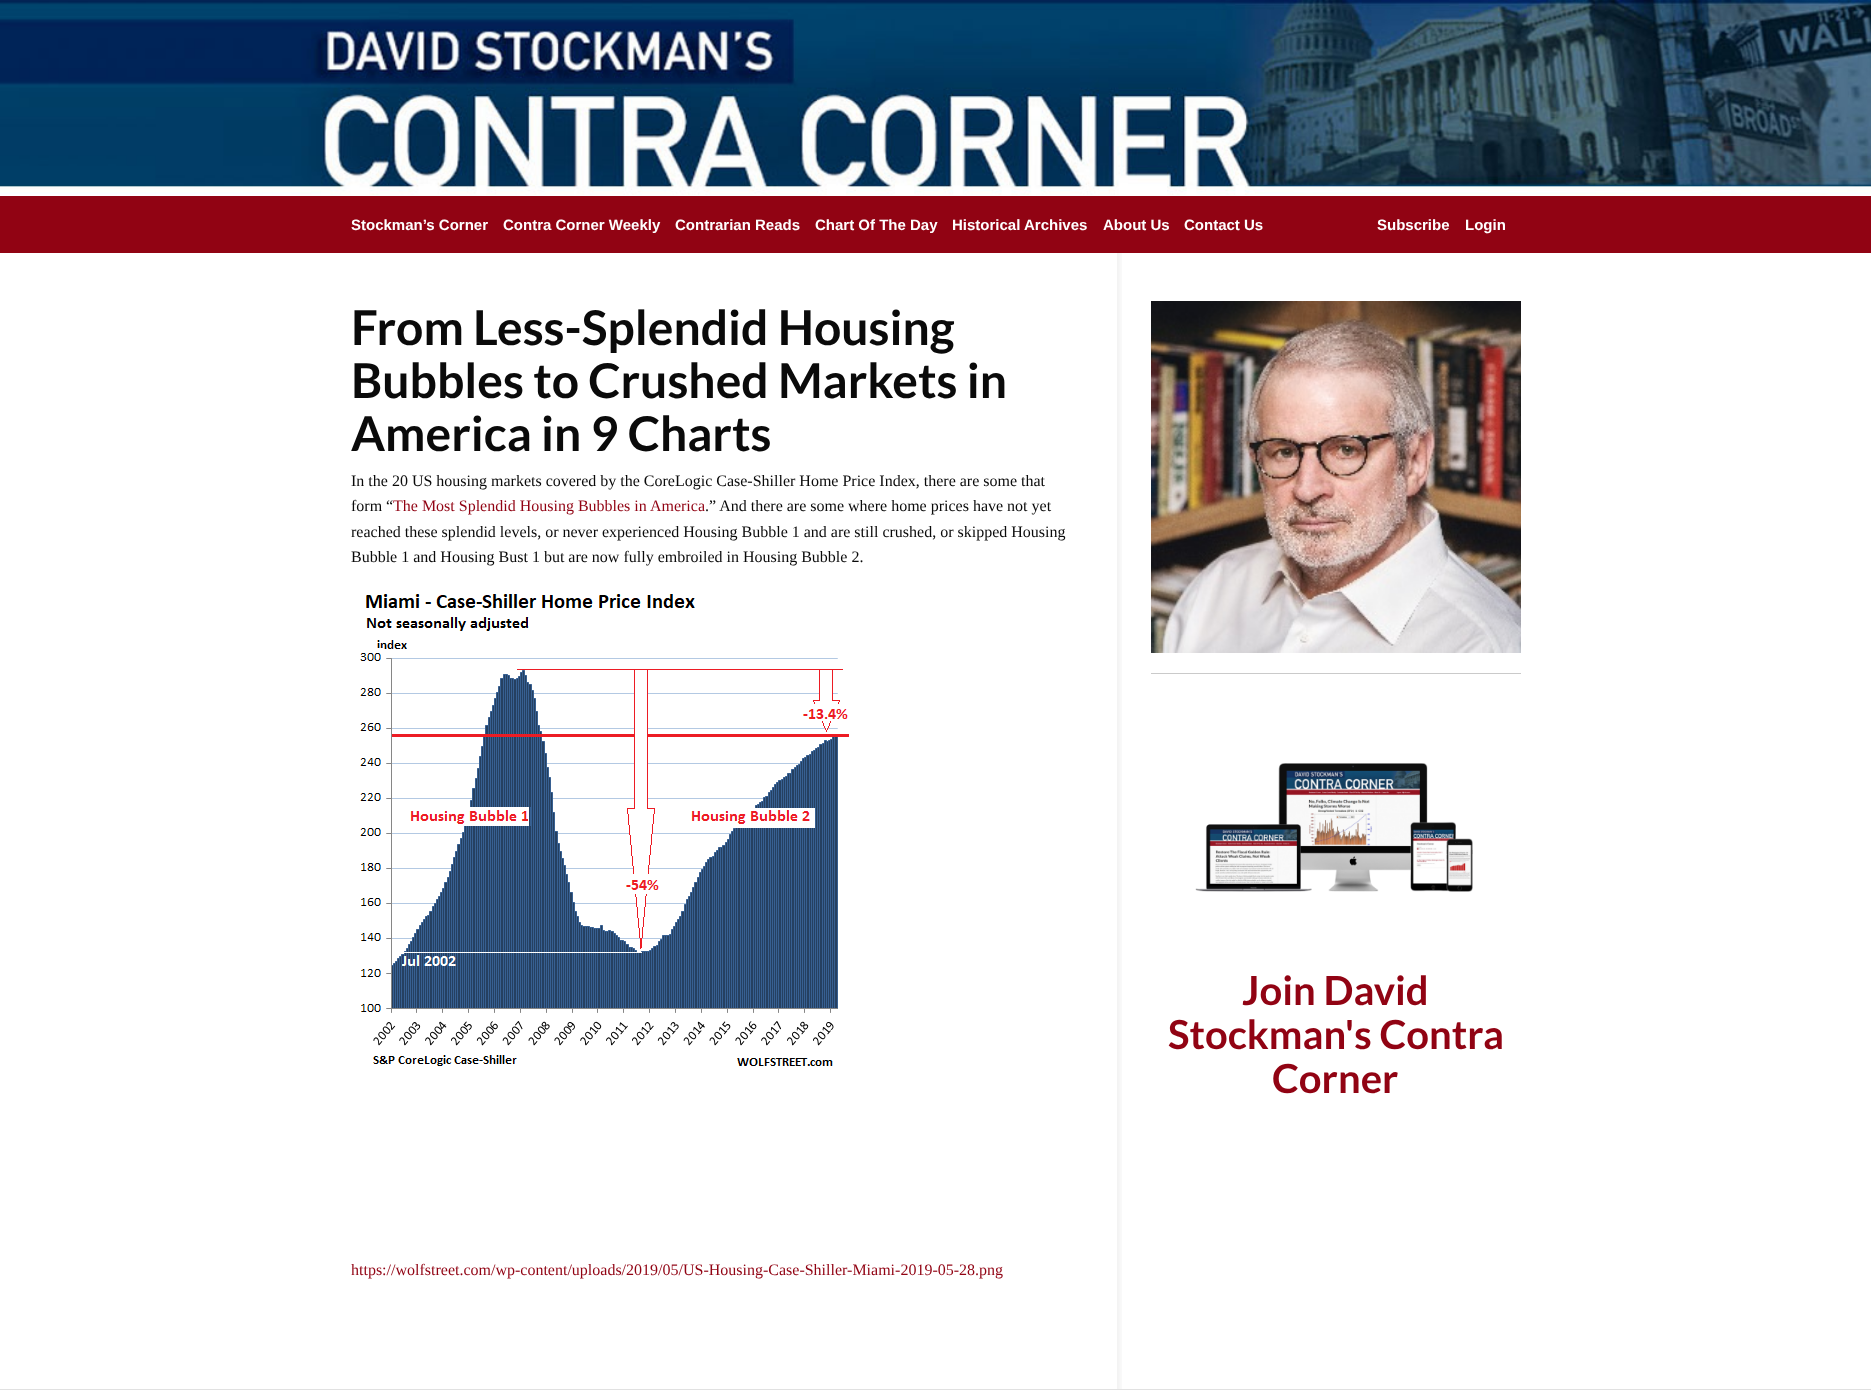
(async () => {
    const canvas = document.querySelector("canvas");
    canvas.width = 1871;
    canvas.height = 1392;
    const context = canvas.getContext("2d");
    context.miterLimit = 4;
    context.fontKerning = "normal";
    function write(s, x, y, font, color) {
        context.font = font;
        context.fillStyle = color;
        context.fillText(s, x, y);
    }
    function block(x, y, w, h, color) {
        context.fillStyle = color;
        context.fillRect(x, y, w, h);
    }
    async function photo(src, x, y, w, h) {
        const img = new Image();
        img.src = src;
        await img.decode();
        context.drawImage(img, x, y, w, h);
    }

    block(0, 0, 1871, 1392, "rgb(255, 255, 255)");
    await photo("media/1.png", 0, 0, 1871, 195);
    block(0, 196, 1871, 57, "rgb(145, 3, 19)");
    write("Stockman’s Corner", 351, 230, "bold 15px Liberation Sans", "rgb(255, 255, 255)");
    write("Contra Corner Weekly", 503, 230, "bold 15px Liberation Sans", "rgb(255, 255, 255)");
    write("Contrarian Reads", 675, 230, "bold 15px Liberation Sans", "rgb(255, 255, 255)");
    write("Chart Of The Day", 815, 230, "bold 15px Liberation Sans", "rgb(255, 255, 255)");
    write("Historical Archives", 952, 230, "bold 15px Liberation Sans", "rgb(255, 255, 255)");
    write("About Us", 1103, 230, "bold 15px Liberation Sans", "rgb(255, 255, 255)");
    write("Contact Us", 1184, 230, "bold 15px Liberation Sans", "rgb(255, 255, 255)");
    write("Subscribe", 1377, 230, "bold 15px Liberation Sans", "rgb(255, 255, 255)");
    write("Login", 1465, 230, "bold 15px Liberation Sans", "rgb(255, 255, 255)");
    await photo("media/2.png", 1117, 253, 5, 1136);
    write("From Less-Splendid Housing", 351, 345, "bold 48px Lato", "rgb(10, 10, 10)");
    write("Bubbles to Crushed Markets in", 351, 398, "bold 48px Lato", "rgb(10, 10, 10)");
    write("America in 9 Charts", 351, 451, "bold 48px Lato", "rgb(10, 10, 10)");
    write("In the 20 US housing markets covered by the CoreLogic Case-Shiller Home Price Index, there are some that", 351, 486, "16px Liberation Serif", "rgb(10, 10, 10)");
    write("form “", 351, 511, "16px Liberation Serif", "rgb(10, 10, 10)");
    write("The Most Splendid Housing Bubbles in America", 393, 511, "16px Liberation Serif", "rgb(145, 3, 19)");
    write(".” And there are some where home prices have not yet", 705, 511, "16px Liberation Serif", "rgb(10, 10, 10)");
    write("reached these splendid levels, or never experienced Housing Bubble 1 and are still crushed, or skipped Housing", 351, 537, "16px Liberation Serif", "rgb(10, 10, 10)");
    write("Bubble 1 and Housing Bust 1 but are now fully embroiled in Housing Bubble 2.", 351, 562, "16px Liberation Serif", "rgb(10, 10, 10)");
    await photo("media/3.png", 360, 594, 489, 472);
    write("https://wolfstreet.com/wp-content/uploads/2019/05/US-Housing-Case-Shiller-Miami-2019-05-28.png", 351, 1275, "16px Liberation Serif", "rgb(145, 3, 19)");
    await photo("media/4.png", 1151, 301, 370, 352);
    block(1151, 673, 370, 1, "rgb(202, 202, 202)");
    await photo("media/5.png", 1195, 763, 278, 129);
    write("Join David", 1242, 1005, "bold 40px Lato", "rgb(145, 3, 19)");
    write("Stockman's Contra", 1168, 1049, "bold 40px Lato", "rgb(145, 3, 19)");
    write("Corner", 1272, 1093, "bold 40px Lato", "rgb(145, 3, 19)");
    block(0, 1389, 1871, 1, "rgb(225, 225, 225)");
})();
